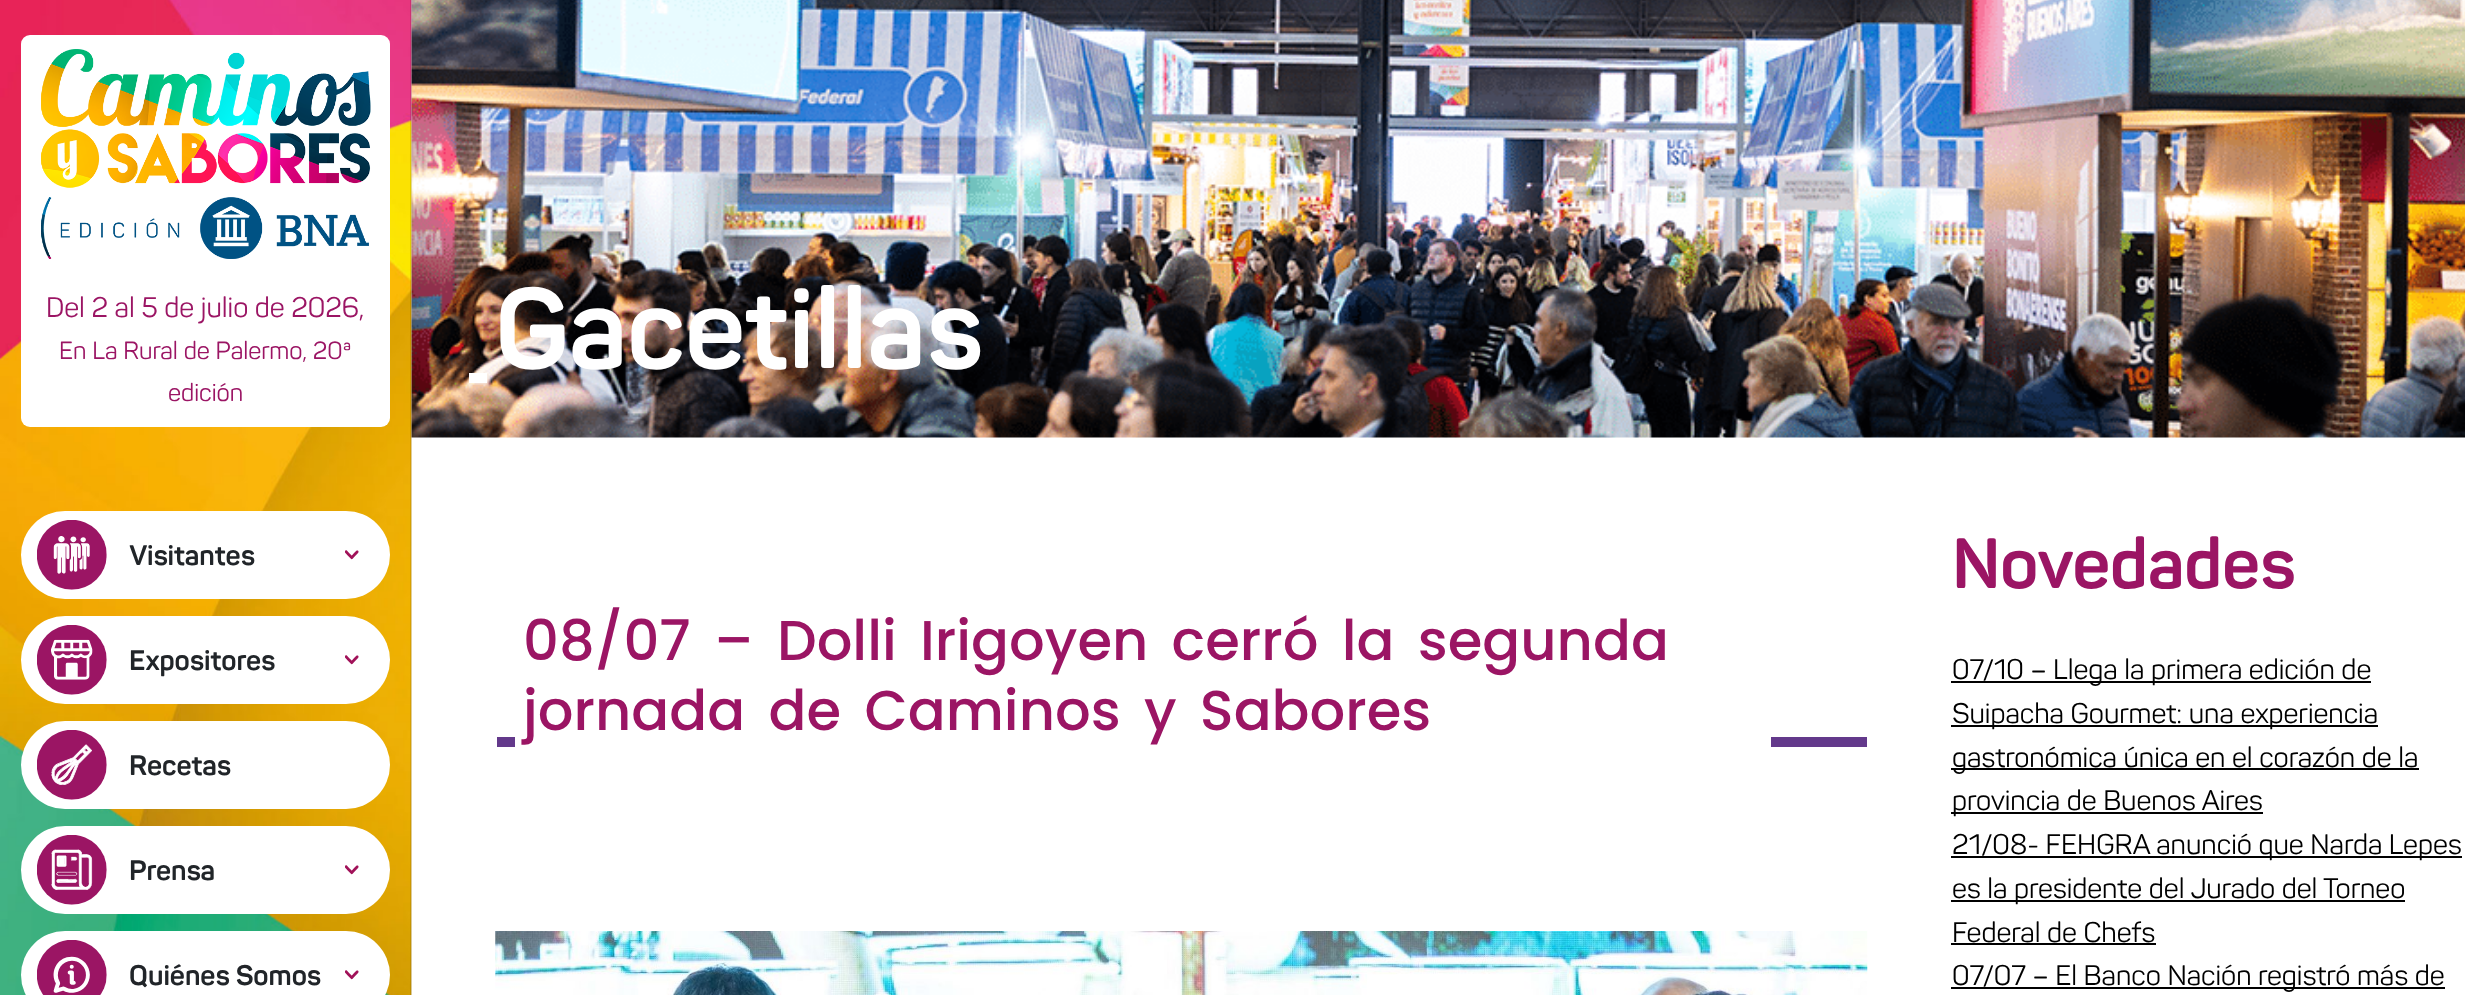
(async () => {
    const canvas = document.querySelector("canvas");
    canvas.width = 2465;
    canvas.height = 995;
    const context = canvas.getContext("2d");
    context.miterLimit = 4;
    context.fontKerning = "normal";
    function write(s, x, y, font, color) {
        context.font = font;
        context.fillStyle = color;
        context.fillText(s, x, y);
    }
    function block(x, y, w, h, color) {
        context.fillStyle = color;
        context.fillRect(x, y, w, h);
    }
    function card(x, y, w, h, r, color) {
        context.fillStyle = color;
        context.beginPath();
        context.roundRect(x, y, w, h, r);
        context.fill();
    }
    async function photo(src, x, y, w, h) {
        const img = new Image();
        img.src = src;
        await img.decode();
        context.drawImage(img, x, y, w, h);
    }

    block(0, 0, 2465, 995, "rgb(255, 255, 255)");
    await photo("media/10.png", 411, 0, 2054, 438);
    await photo("media/1.png", 0, 0, 412, 995);
    block(410, 0, 2, 995, "rgba(0, 0, 0, 0.1)");
    card(21, 35, 369, 392, 9, "rgb(255, 255, 255)");
    await photo("media/2.png", 41, 49, 330, 210);
    write("Del 2 al 5 de julio de 2026,", 46, 317, "28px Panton", "rgb(155, 21, 100)");
    write("En La Rural de Palermo, 20ª", 59, 359, "24.5px Panton", "rgb(155, 21, 100)");
    write("edición", 168, 401, "24.5px Panton", "rgb(155, 21, 100)");
    card(21, 511, 369, 88, 44, "rgb(255, 255, 255)");
    await photo("media/3.png", 37, 520, 70, 70);
    write("Visitantes", 129, 565, "bold 28px Panton", "rgb(33, 37, 41)");
    await photo("media/4.png", 345, 550, 14, 10);
    card(21, 616, 369, 88, 44, "rgb(255, 255, 255)");
    await photo("media/5.png", 37, 625, 70, 70);
    write("Expositores", 129, 670, "bold 28px Panton", "rgb(33, 37, 41)");
    await photo("media/6.png", 345, 655, 14, 10);
    card(21, 721, 369, 88, 44, "rgb(255, 255, 255)");
    await photo("media/7.png", 37, 730, 70, 70);
    write("Recetas", 129, 775, "bold 28px Panton", "rgb(33, 37, 41)");
    card(21, 826, 369, 88, 44, "rgb(255, 255, 255)");
    await photo("media/8.png", 37, 835, 70, 70);
    write("Prensa", 129, 880, "bold 28px Panton", "rgb(33, 37, 41)");
    await photo("media/6.png", 345, 865, 14, 10);
    card(21, 931, 369, 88, 44, "rgb(255, 255, 255)");
    await photo("media/9.png", 37, 940, 70, 55);
    write("Quiénes Somos", 129, 985, "bold 28px Panton", "rgb(33, 37, 41)");
    await photo("media/6.png", 345, 970, 14, 10);
    write("Gacetillas", 495, 368, "bold 112px Panton", "rgb(255, 255, 255)");
    block(469, 373, 18, 10, "rgb(255, 255, 255)");
    context.wordSpacing = "8.75px";
    write("08/07 – Dolli Irigoyen cerró la segunda", 523, 660, "500 56px Poppins", "rgb(155, 21, 100)");
    block(497, 737, 18, 10, "rgb(99, 57, 139)");
    write("jornada de Caminos y Sabores", 523, 730, "500 56px Poppins", "rgb(155, 21, 100)");
    block(1771, 737, 96, 10, "rgb(99, 57, 139)");
    await photo("media/11.png", 495, 931, 1373, 64);
    context.wordSpacing = "0px";
    write("Novedades", 1952, 588, "bold 70px Panton", "rgb(155, 21, 100)");
    block(1951, 681, 420, 2, "rgb(0, 0, 0)");
    write("07/10 – Llega la primera edición de", 1952, 679, "28px Panton", "rgb(0, 0, 0)");
    block(1951, 725, 427, 2, "rgb(0, 0, 0)");
    write("Suipacha Gourmet: una experiencia", 1952, 723, "28px Panton", "rgb(0, 0, 0)");
    block(1951, 768, 468, 2, "rgb(0, 0, 0)");
    write("gastronómica única en el corazón de la", 1952, 767, "28px Panton", "rgb(0, 0, 0)");
    block(1951, 812, 312, 2, "rgb(0, 0, 0)");
    write("provincia de Buenos Aires", 1952, 810, "28px Panton", "rgb(0, 0, 0)");
    block(1951, 856, 511, 2, "rgb(0, 0, 0)");
    write("21/08- FEHGRA anunció que Narda Lepes", 1952, 854, "28px Panton", "rgb(0, 0, 0)");
    block(1951, 900, 454, 2, "rgb(0, 0, 0)");
    write("es la presidente del Jurado del Torneo", 1952, 898, "28px Panton", "rgb(0, 0, 0)");
    write("Federal de Chefs", 1952, 942, "28px Panton", "rgb(0, 0, 0)");
    block(1951, 943, 205, 2, "rgb(0, 0, 0)");
    block(1951, 987, 494, 2, "rgb(0, 0, 0)");
    write("07/07 – El Banco Nación registró más de", 1952, 985, "28px Panton", "rgb(0, 0, 0)");
})();
